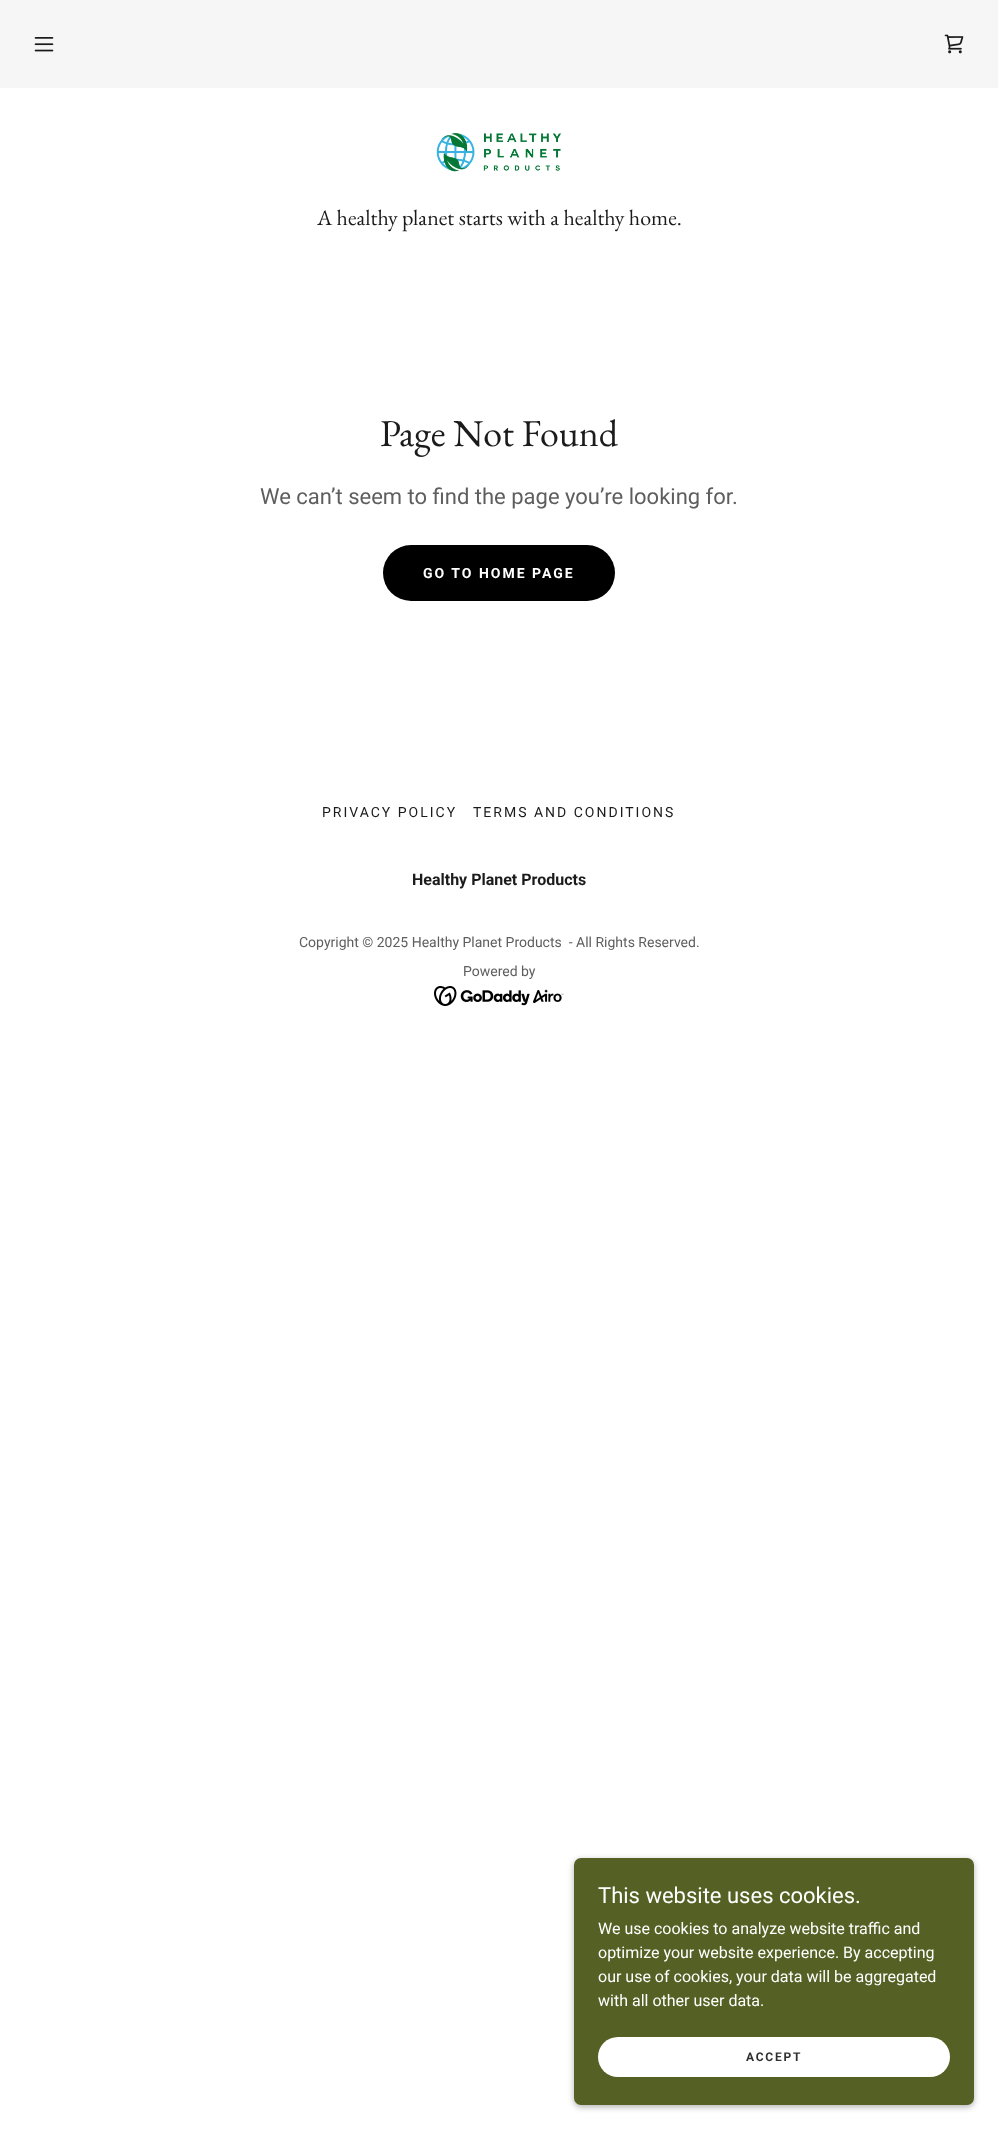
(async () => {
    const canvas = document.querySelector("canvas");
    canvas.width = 998;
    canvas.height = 2129;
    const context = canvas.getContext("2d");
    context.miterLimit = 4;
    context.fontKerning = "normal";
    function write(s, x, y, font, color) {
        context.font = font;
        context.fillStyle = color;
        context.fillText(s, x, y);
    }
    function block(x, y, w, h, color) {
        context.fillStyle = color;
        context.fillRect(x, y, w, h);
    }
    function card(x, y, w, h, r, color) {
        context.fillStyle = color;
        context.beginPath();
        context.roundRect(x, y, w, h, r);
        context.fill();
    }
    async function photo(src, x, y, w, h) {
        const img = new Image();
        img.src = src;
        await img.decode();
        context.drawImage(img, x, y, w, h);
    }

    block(0, 0, 998, 2129, "rgb(255, 255, 255)");
    block(0, 0, 998, 88, "rgb(246, 246, 246)");
    await photo("media/1.png", 34, 37, 20, 15);
    await photo("media/2.png", 944, 34, 20, 20);
    await photo("media/3.png", 436, 132, 126, 40);
    write("A healthy planet starts with a healthy home.", 317, 225, "22px EB Garamond", "rgb(27, 27, 27)");
    write("Page Not Found", 380, 446, "38px EB Garamond", "rgb(27, 27, 27)");
    write("We can’t seem to find the page you’re looking for.", 260, 504, "22px Roboto", "rgb(94, 94, 94)");
    card(383, 545, 232, 56, 28, "rgb(0, 0, 0)");
    context.letterSpacing = "2px";
    write("GO TO HOME PAGE", 423, 578, "bold 14px Roboto", "rgb(255, 255, 255)");
    write("PRIVACY POLICY", 322, 817, "14px Roboto", "rgb(27, 27, 27)");
    write("TERMS AND CONDITIONS", 473, 817, "14px Roboto", "rgb(27, 27, 27)");
    context.letterSpacing = "0px";
    write("Healthy Planet Products", 412, 885, "bold 16px Roboto", "rgb(27, 27, 27)");
    write("Copyright © 2025 Healthy Planet Products  - All Rights Reserved.", 299, 947, "14px Roboto", "rgb(94, 94, 94)");
    write("Powered by", 463, 976, "14px Roboto", "rgb(94, 94, 94)");
    await photo("media/4.png", 434, 986, 130, 20);
    context.fillStyle = "rgba(0, 0, 0, 0.3)";
    context.filter = "blur(3px)";
    context.beginPath();
    context.roundRect(574, 1860, 400, 247, 7);
    context.fill();
    context.filter = "none";
    card(574, 1858, 400, 247, 7, "rgb(85, 96, 36)");
    write("This website uses cookies.", 598, 1903, "22px Roboto", "rgb(255, 255, 255)");
    write("We use cookies to analyze website traffic and", 598, 1934, "16px Roboto", "rgb(255, 255, 255)");
    write("optimize your website experience. By accepting", 598, 1958, "16px Roboto", "rgb(255, 255, 255)");
    write("our use of cookies, your data will be aggregated", 598, 1982, "16px Roboto", "rgb(255, 255, 255)");
    write("with all other user data.", 598, 2006, "16px Roboto", "rgb(255, 255, 255)");
    card(598, 2037, 352, 40, 20, "rgb(255, 255, 255)");
    context.letterSpacing = "1.75px";
    write("ACCEPT", 746, 2061, "bold 12px Roboto", "rgb(48, 48, 48)");
})();
